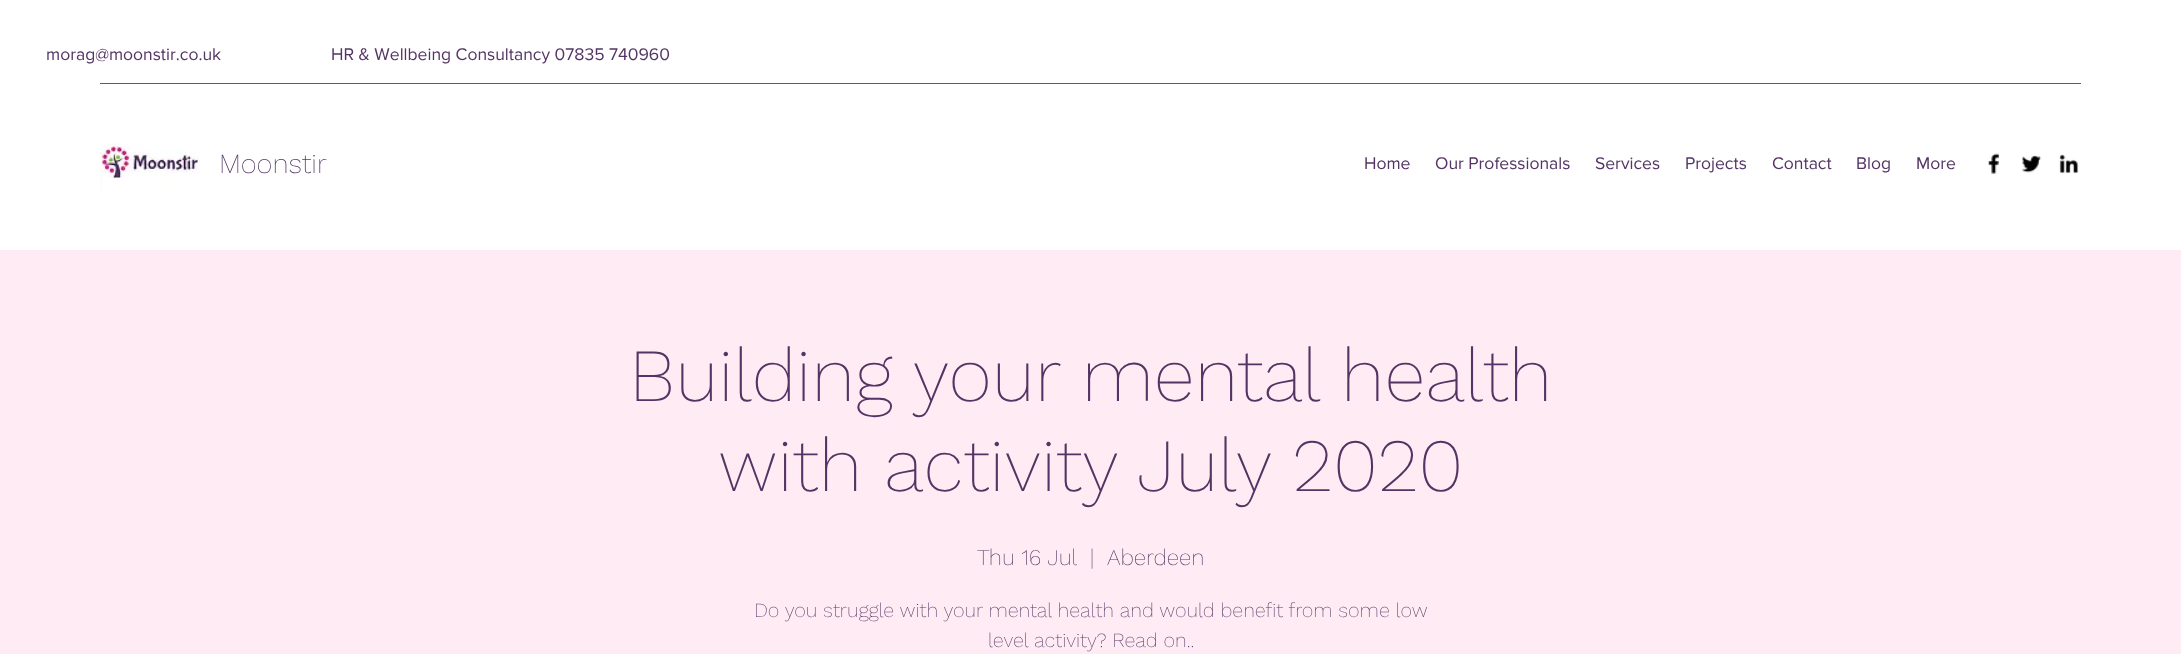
(async () => {
    const canvas = document.querySelector("canvas");
    canvas.width = 2181;
    canvas.height = 654;
    const context = canvas.getContext("2d");
    context.miterLimit = 4;
    context.fontKerning = "normal";
    function write(s, x, y, font, color) {
        context.font = font;
        context.fillStyle = color;
        context.fillText(s, x, y);
    }
    function block(x, y, w, h, color) {
        context.fillStyle = color;
        context.fillRect(x, y, w, h);
    }
    async function photo(src, x, y, w, h) {
        const img = new Image();
        img.src = src;
        await img.decode();
        context.drawImage(img, x, y, w, h);
    }

    block(0, 0, 2181, 654, "rgb(255, 255, 255)");
    write("morag@moonstir.co.uk", 46, 60, "17.5px 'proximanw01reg'", "rgb(84, 52, 100)");
    write("HR & Wellbeing Consultancy 07835 740960", 331, 60, "17.5px 'proximanw01reg'", "rgb(84, 52, 100)");
    block(100, 83, 1981, 1, "rgb(110, 82, 123)");
    await photo("media/1.png", 100, 143, 100, 48);
    write("Moonstir", 219, 173, "200 27.5px Work Sans", "rgb(84, 52, 100)");
    write("Home", 1364, 169, "17.5px 'proximanw01reg'", "rgb(84, 52, 100)");
    write("Our Professionals", 1435, 169, "17.5px 'proximanw01reg'", "rgb(84, 52, 100)");
    write("Services", 1595, 169, "17.5px 'proximanw01reg'", "rgb(84, 52, 100)");
    write("Projects", 1685, 169, "17.5px 'proximanw01reg'", "rgb(84, 52, 100)");
    write("Contact", 1772, 169, "17.5px 'proximanw01reg'", "rgb(84, 52, 100)");
    write("Blog", 1856, 169, "17.5px 'proximanw01reg'", "rgb(84, 52, 100)");
    write("More", 1916, 169, "17.5px 'proximanw01reg'", "rgb(84, 52, 100)");
    await photo("media/2.png", 1988, 153, 12, 21);
    await photo("media/3.png", 2021, 155, 21, 18);
    await photo("media/4.png", 2059, 154, 20, 20);
    block(0, 250, 2181, 404, "rgb(254, 235, 243)");
    write("Building your mental health", 629, 401, "200 75px Work Sans", "rgb(84, 52, 100)");
    write("with activity July 2020", 718, 491, "200 75px Work Sans", "rgb(84, 52, 100)");
    write("Thu 16 Jul", 977, 565, "200 22.5px Work Sans", "rgb(84, 52, 100)");
    write("|", 1090, 565, "200 22.5px Work Sans", "rgb(84, 52, 100)");
    write("Aberdeen", 1107, 565, "200 22.5px Work Sans", "rgb(84, 52, 100)");
    write("Do you struggle with your mental health and would benefit from some low", 754, 617, "200 20px Work Sans", "rgb(84, 52, 100)");
    write("level activity? Read on..", 988, 647, "200 20px Work Sans", "rgb(84, 52, 100)");
})();
